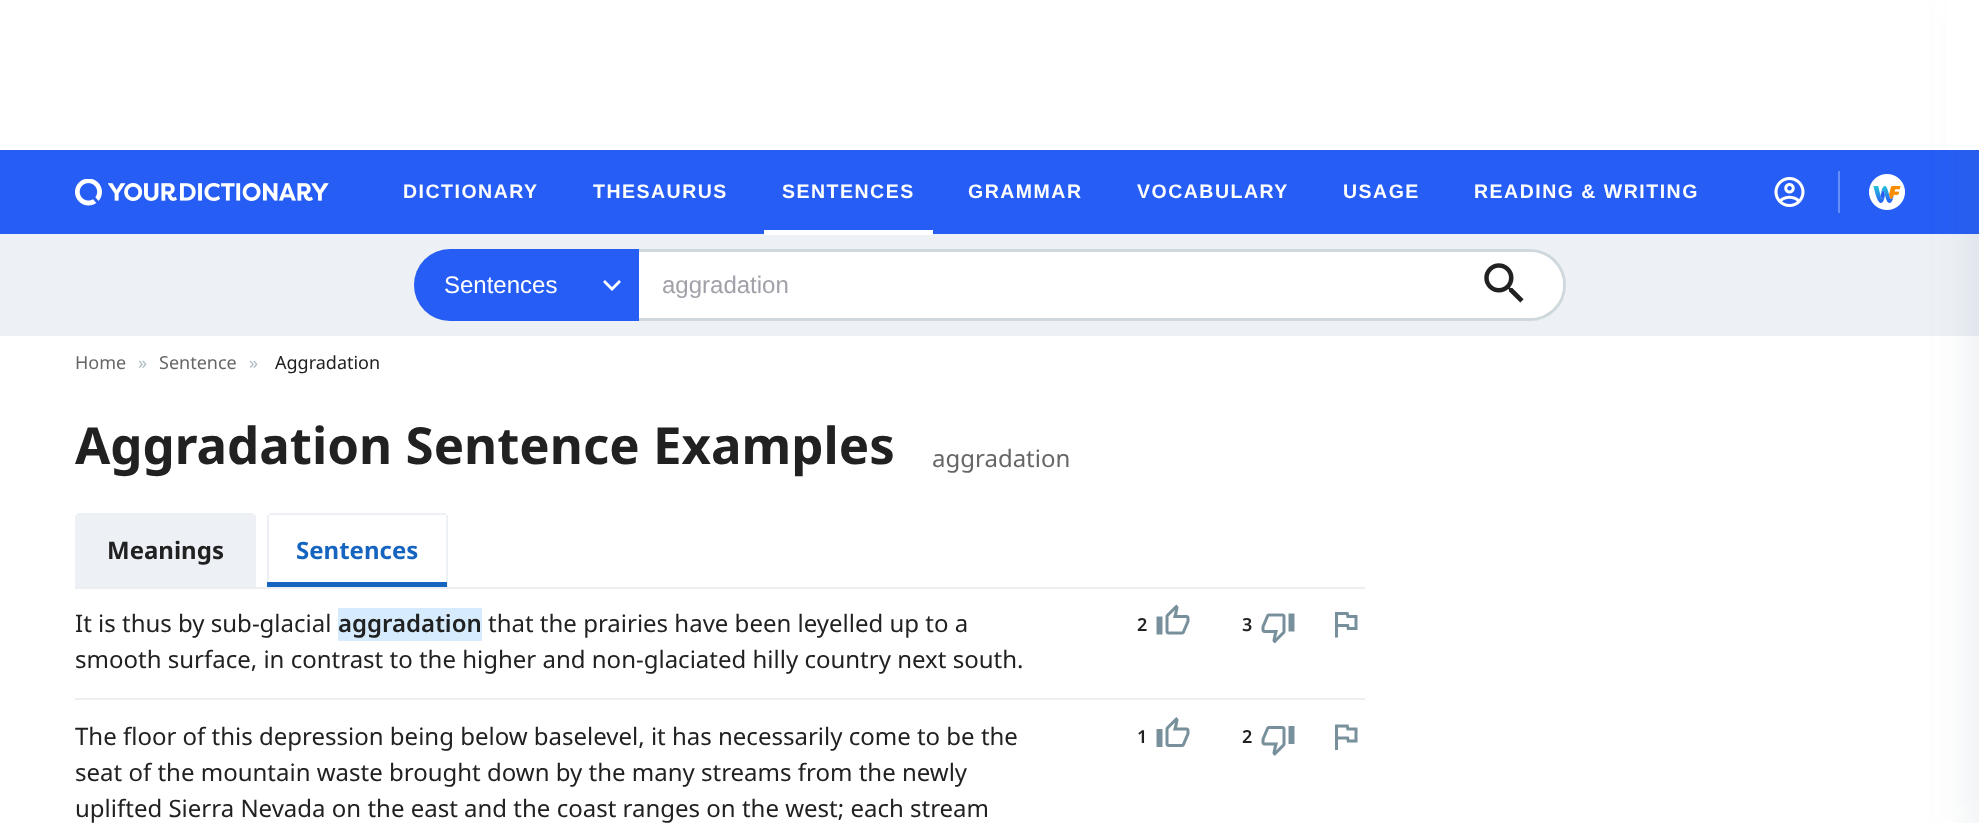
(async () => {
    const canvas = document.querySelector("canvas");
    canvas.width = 1979;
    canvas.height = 823;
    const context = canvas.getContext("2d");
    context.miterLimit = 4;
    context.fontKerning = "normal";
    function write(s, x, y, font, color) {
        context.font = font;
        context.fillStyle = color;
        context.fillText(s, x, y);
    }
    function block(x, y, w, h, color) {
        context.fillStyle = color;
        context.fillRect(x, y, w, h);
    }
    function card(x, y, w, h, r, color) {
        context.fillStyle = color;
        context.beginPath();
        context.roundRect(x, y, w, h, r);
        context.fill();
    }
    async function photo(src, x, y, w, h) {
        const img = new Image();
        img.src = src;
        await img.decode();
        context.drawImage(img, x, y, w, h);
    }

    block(0, 0, 1979, 823, "rgb(255, 255, 255)");
    block(0, 150, 1979, 84, "rgb(38, 94, 245)");
    await photo("media/3.png", 1869, 174, 36, 36);
    block(0, 234, 1979, 102, "rgb(237, 241, 246)");
    context.fillStyle = "rgba(84, 110, 122, 0.12)";
    context.filter = "blur(22.5px)";
    context.beginPath();
    context.rect(1973, 2, 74, 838);
    context.fill();
    context.filter = "none";
    block(1947, 0, 32, 150, "rgb(255, 255, 255)");
    await photo("media/1.png", 75, 179, 254, 27);
    context.letterSpacing = "1.5px";
    write("DICTIONARY", 403, 198, "bold 19.5px Liberation Sans", "rgb(255, 255, 255)");
    write("THESAURUS", 593, 198, "bold 19.5px Liberation Sans", "rgb(255, 255, 255)");
    write("SENTENCES", 782, 198, "bold 19.5px Liberation Sans", "rgb(255, 255, 255)");
    block(764, 230, 169, 5, "rgb(255, 255, 255)");
    write("GRAMMAR", 968, 198, "bold 19.5px Liberation Sans", "rgb(255, 255, 255)");
    write("VOCABULARY", 1137, 198, "bold 19.5px Liberation Sans", "rgb(255, 255, 255)");
    write("USAGE", 1343, 198, "bold 19.5px Liberation Sans", "rgb(255, 255, 255)");
    write("READING & WRITING", 1474, 198, "bold 19.5px Liberation Sans", "rgb(255, 255, 255)");
    await photo("media/2.png", 1774, 177, 31, 30);
    block(1838, 171, 2, 42, "rgb(103, 142, 248)");
    context.fillStyle = "rgb(255, 255, 255)";
    context.beginPath();
    context.roundRect(415.5, 250.5, 1149, 69, 34.5);
    context.fill();
    context.strokeStyle = "rgb(207, 216, 220)";
    context.lineWidth = 3;
    context.stroke();
    context.fillStyle = "rgb(38, 94, 245)";
    context.beginPath();
    context.roundRect(414, 249, 225, 72, [36, 0, 0, 36]);
    context.fill();
    context.letterSpacing = "0px";
    write("Sentences", 444, 293, "24px Liberation Sans", "rgb(255, 255, 255)");
    context.beginPath();
    context.moveTo(619, 280);
    context.lineTo(612, 287);
    context.lineTo(605, 280);
    context.lineTo(603, 282);
    context.lineTo(612, 291);
    context.lineTo(621, 282);
    context.closePath();
    context.fill();
    write("aggradation", 662, 293, "24px Liberation Sans", "rgb(161, 161, 170)");
    card(1473, 252, 90, 66, 33, "rgb(255, 255, 255)");
    await photo("media/4.png", 1484, 263, 40, 40);
    write("Home", 75, 369, "18px Noto Sans", "rgb(102, 102, 102)");
    write("»", 138, 369, "18px Noto Sans", "rgb(176, 190, 197)");
    write("Sentence", 159, 369, "18px Noto Sans", "rgb(102, 102, 102)");
    write("»", 249, 369, "18px Noto Sans", "rgb(176, 190, 197)");
    write("Aggradation", 275, 369, "18px Noto Sans", "rgb(33, 33, 33)");
    write("Aggradation Sentence Examples", 75, 464, "bold 51px Noto Sans", "rgb(33, 33, 33)");
    write("aggradation", 932, 467, "24px Noto Sans", "rgb(102, 102, 102)");
    context.fillStyle = "rgb(237, 241, 246)";
    context.beginPath();
    context.roundRect(77, 515, 177, 72, [1.5, 1.5, 0, 0]);
    context.fill();
    block(77, 513, 177, 2, "rgb(237, 241, 246)");
    block(254, 515, 2, 72, "rgb(237, 241, 246)");
    block(75, 515, 2, 72, "rgb(237, 241, 246)");
    write("Meanings", 107, 559, "bold 24px Noto Sans", "rgb(33, 33, 33)");
    block(269, 513, 177, 2, "rgb(237, 241, 246)");
    block(446, 515, 2, 72, "rgb(237, 241, 246)");
    block(267, 515, 2, 72, "rgb(237, 241, 246)");
    write("Sentences", 296, 559, "bold 24px Noto Sans", "rgb(21, 101, 192)");
    block(267, 582, 180, 5, "rgb(21, 101, 192)");
    block(75, 587, 1290, 2, "rgb(236, 239, 241)");
    block(75, 698, 1290, 2, "rgb(236, 239, 241)");
    write("It is thus by sub-glacial", 75, 632, "24px Noto Sans", "rgb(33, 33, 33)");
    block(338, 608, 144, 33, "rgb(214, 235, 253)");
    write("aggradation", 338, 632, "600 24px Noto Sans", "rgb(33, 33, 33)");
    write("that the prairies have been leyelled up to a", 488, 632, "24px Noto Sans", "rgb(33, 33, 33)");
    write("smooth surface, in contrast to the higher and non-glaciated hilly country next south.", 75, 668, "24px Noto Sans", "rgb(33, 33, 33)");
    write("2", 1137, 631, "600 18px Noto Sans", "rgb(33, 33, 33)");
    await photo("media/5.png", 1156, 604, 34, 31);
    write("3", 1242, 631, "600 18px Noto Sans", "rgb(33, 33, 33)");
    await photo("media/6.png", 1261, 613, 34, 31);
    await photo("media/7.png", 1335, 612, 23, 26);
    write("The floor of this depression being below baselevel, it has necessarily come to be the", 75, 745, "24px Noto Sans", "rgb(33, 33, 33)");
    write("seat of the mountain waste brought down by the many streams from the newly", 75, 781, "24px Noto Sans", "rgb(33, 33, 33)");
    write("uplifted Sierra Nevada on the east and the coast ranges on the west; each stream", 75, 817, "24px Noto Sans", "rgb(33, 33, 33)");
    write("1", 1137, 743, "600 18px Noto Sans", "rgb(33, 33, 33)");
    await photo("media/8.png", 1156, 717, 34, 30);
    write("2", 1242, 743, "600 18px Noto Sans", "rgb(33, 33, 33)");
    await photo("media/9.png", 1261, 726, 34, 30);
    await photo("media/10.png", 1335, 724, 23, 26);
})();
